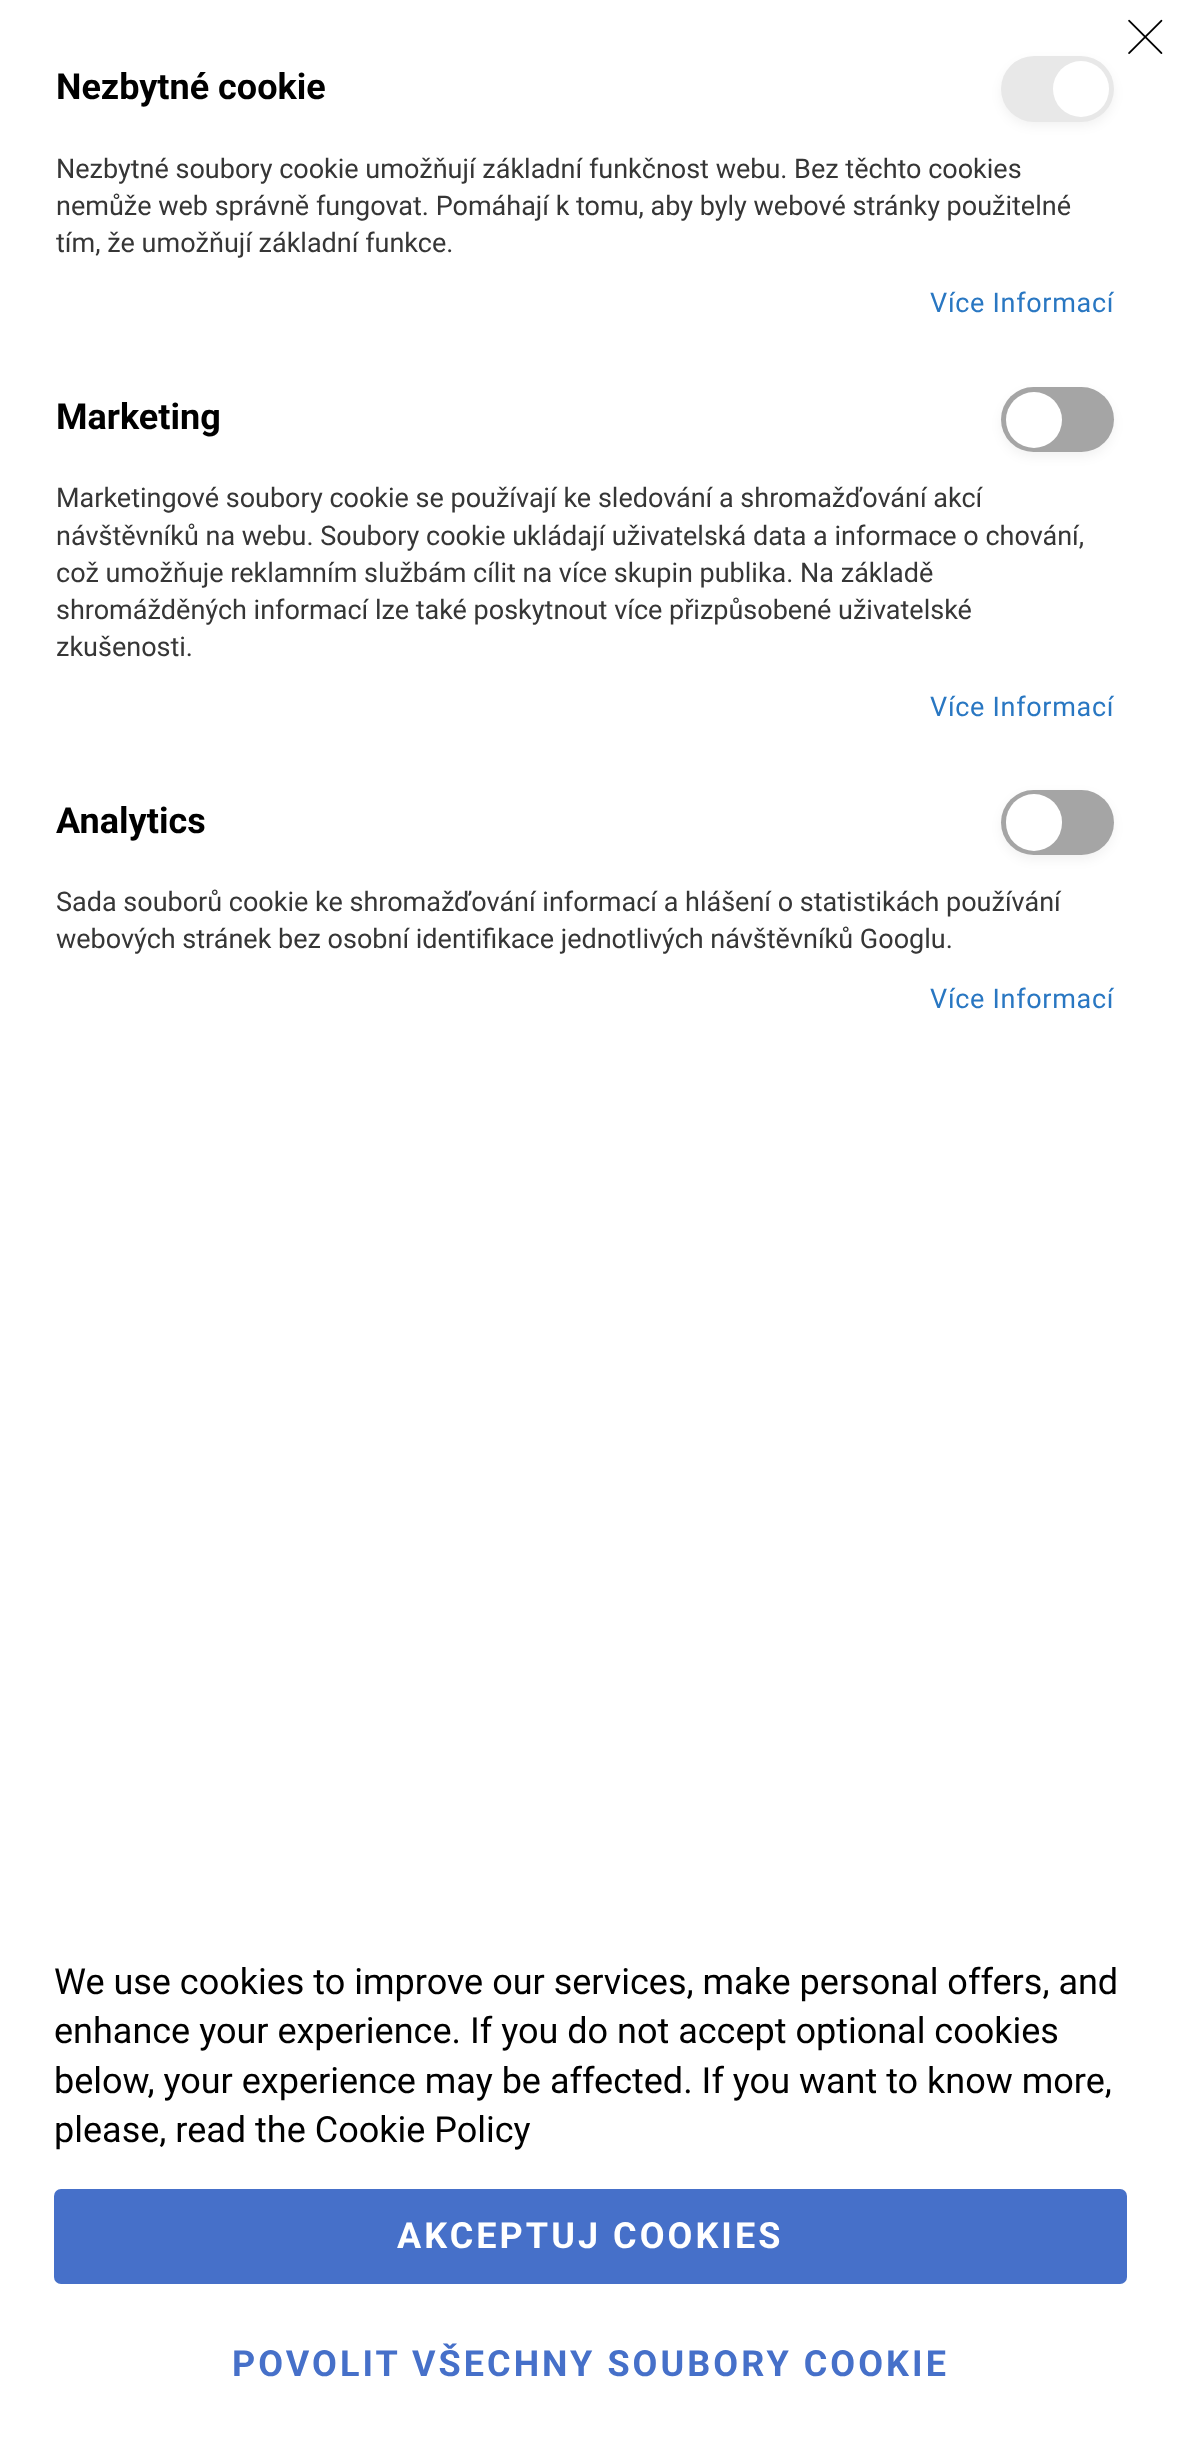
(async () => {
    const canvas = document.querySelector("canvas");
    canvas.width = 1180;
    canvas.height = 2464;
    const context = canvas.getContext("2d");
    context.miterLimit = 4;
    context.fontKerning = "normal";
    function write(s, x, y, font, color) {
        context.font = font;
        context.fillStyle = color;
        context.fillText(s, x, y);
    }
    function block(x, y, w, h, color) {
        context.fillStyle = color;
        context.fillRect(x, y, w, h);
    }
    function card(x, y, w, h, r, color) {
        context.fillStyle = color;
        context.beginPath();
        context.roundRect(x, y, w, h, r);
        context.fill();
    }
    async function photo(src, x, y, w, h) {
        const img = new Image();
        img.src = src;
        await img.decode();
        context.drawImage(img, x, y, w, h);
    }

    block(0, 0, 1180, 2464, "rgb(255, 255, 255)");
    context.fillStyle = "rgba(0, 0, 0, 0.05)";
    context.filter = "blur(5.5px)";
    context.beginPath();
    context.roundRect(1001, 61, 113, 65, 32.5);
    context.fill();
    context.filter = "none";
    await photo("media/1.png", 1128, 19, 35, 35);
    write("Nezbytné cookie", 56, 99, "bold 36px Roboto", "rgb(0, 0, 0)");
    card(1001, 56, 113, 66, 33, "rgb(232, 232, 232)");
    context.fillStyle = "rgb(255, 255, 255)";
    context.beginPath();
    context.arc(1081, 89, 28, 0, Math.PI * 2);
    context.fill();
    write("Nezbytné soubory cookie umožňují základní funkčnost webu. Bez těchto cookies", 56, 178, "27px Roboto", "rgb(54, 54, 54)");
    write("nemůže web správně fungovat. Pomáhají k tomu, aby byly webové stránky použitelné", 56, 215, "27px Roboto", "rgb(54, 54, 54)");
    write("tím, že umožňují základní funkce.", 56, 252, "27px Roboto", "rgb(54, 54, 54)");
    context.letterSpacing = "0.7px";
    write("Více Informací", 930, 312, "27px Roboto", "rgb(41, 119, 194)");
    context.letterSpacing = "0px";
    write("Marketing", 56, 429, "bold 36px Roboto", "rgb(0, 0, 0)");
    context.fillStyle = "rgba(0, 0, 0, 0.05)";
    context.filter = "blur(5.5px)";
    context.beginPath();
    context.roundRect(1001, 392, 113, 65, 32.5);
    context.fill();
    context.filter = "none";
    card(1001, 387, 113, 65, 32.5, "rgb(165, 165, 165)");
    context.fillStyle = "rgb(255, 255, 255)";
    context.beginPath();
    context.arc(1034, 420, 28, 0, Math.PI * 2);
    context.fill();
    write("Marketingové soubory cookie se používají ke sledování a shromažďování akcí", 56, 507, "27px Roboto", "rgb(54, 54, 54)");
    write("návštěvníků na webu. Soubory cookie ukládají uživatelská data a informace o chování,", 56, 545, "27px Roboto", "rgb(54, 54, 54)");
    write("což umožňuje reklamním službám cílit na více skupin publika. Na základě", 56, 582, "27px Roboto", "rgb(54, 54, 54)");
    write("shromážděných informací lze také poskytnout více přizpůsobené uživatelské", 56, 619, "27px Roboto", "rgb(54, 54, 54)");
    write("zkušenosti.", 56, 656, "27px Roboto", "rgb(54, 54, 54)");
    context.letterSpacing = "0.7px";
    write("Více Informací", 930, 716, "27px Roboto", "rgb(41, 119, 194)");
    context.letterSpacing = "0px";
    write("Analytics", 56, 833, "bold 36px Roboto", "rgb(0, 0, 0)");
    context.fillStyle = "rgba(0, 0, 0, 0.05)";
    context.filter = "blur(5.5px)";
    context.beginPath();
    context.roundRect(1001, 794, 113, 66, 33);
    context.fill();
    context.filter = "none";
    card(1001, 790, 113, 65, 32.5, "rgb(165, 165, 165)");
    card(1006, 794, 56, 57, 28, "rgb(255, 255, 255)");
    write("Sada souborů cookie ke shromažďování informací a hlášení o statistikách používání", 56, 911, "27px Roboto", "rgb(54, 54, 54)");
    write("webových stránek bez osobní identifikace jednotlivých návštěvníků Googlu.", 56, 948, "27px Roboto", "rgb(54, 54, 54)");
    context.letterSpacing = "0.7px";
    write("Více Informací", 930, 1008, "27px Roboto", "rgb(41, 119, 194)");
    context.letterSpacing = "0px";
    write("We use cookies to improve our services, make personal offers, and", 54, 1994, "36px Roboto", "rgb(0, 0, 0)");
    write("enhance your experience. If you do not accept optional cookies", 54, 2043, "36px Roboto", "rgb(0, 0, 0)");
    write("below, your experience may be affected. If you want to know more,", 54, 2093, "36px Roboto", "rgb(0, 0, 0)");
    write("please, read the Cookie Policy", 54, 2142, "36px Roboto", "rgb(0, 0, 0)");
    card(54, 2189, 1073, 95, 7, "rgb(70, 112, 201)");
    context.letterSpacing = "3.05px";
    write("AKCEPTUJ COOKIES", 397, 2248, "bold 36px Roboto", "rgb(255, 255, 255)");
    write("POVOLIT VŠECHNY SOUBORY COOKIE", 232, 2376, "bold 36px Roboto", "rgb(70, 112, 201)");
})();
